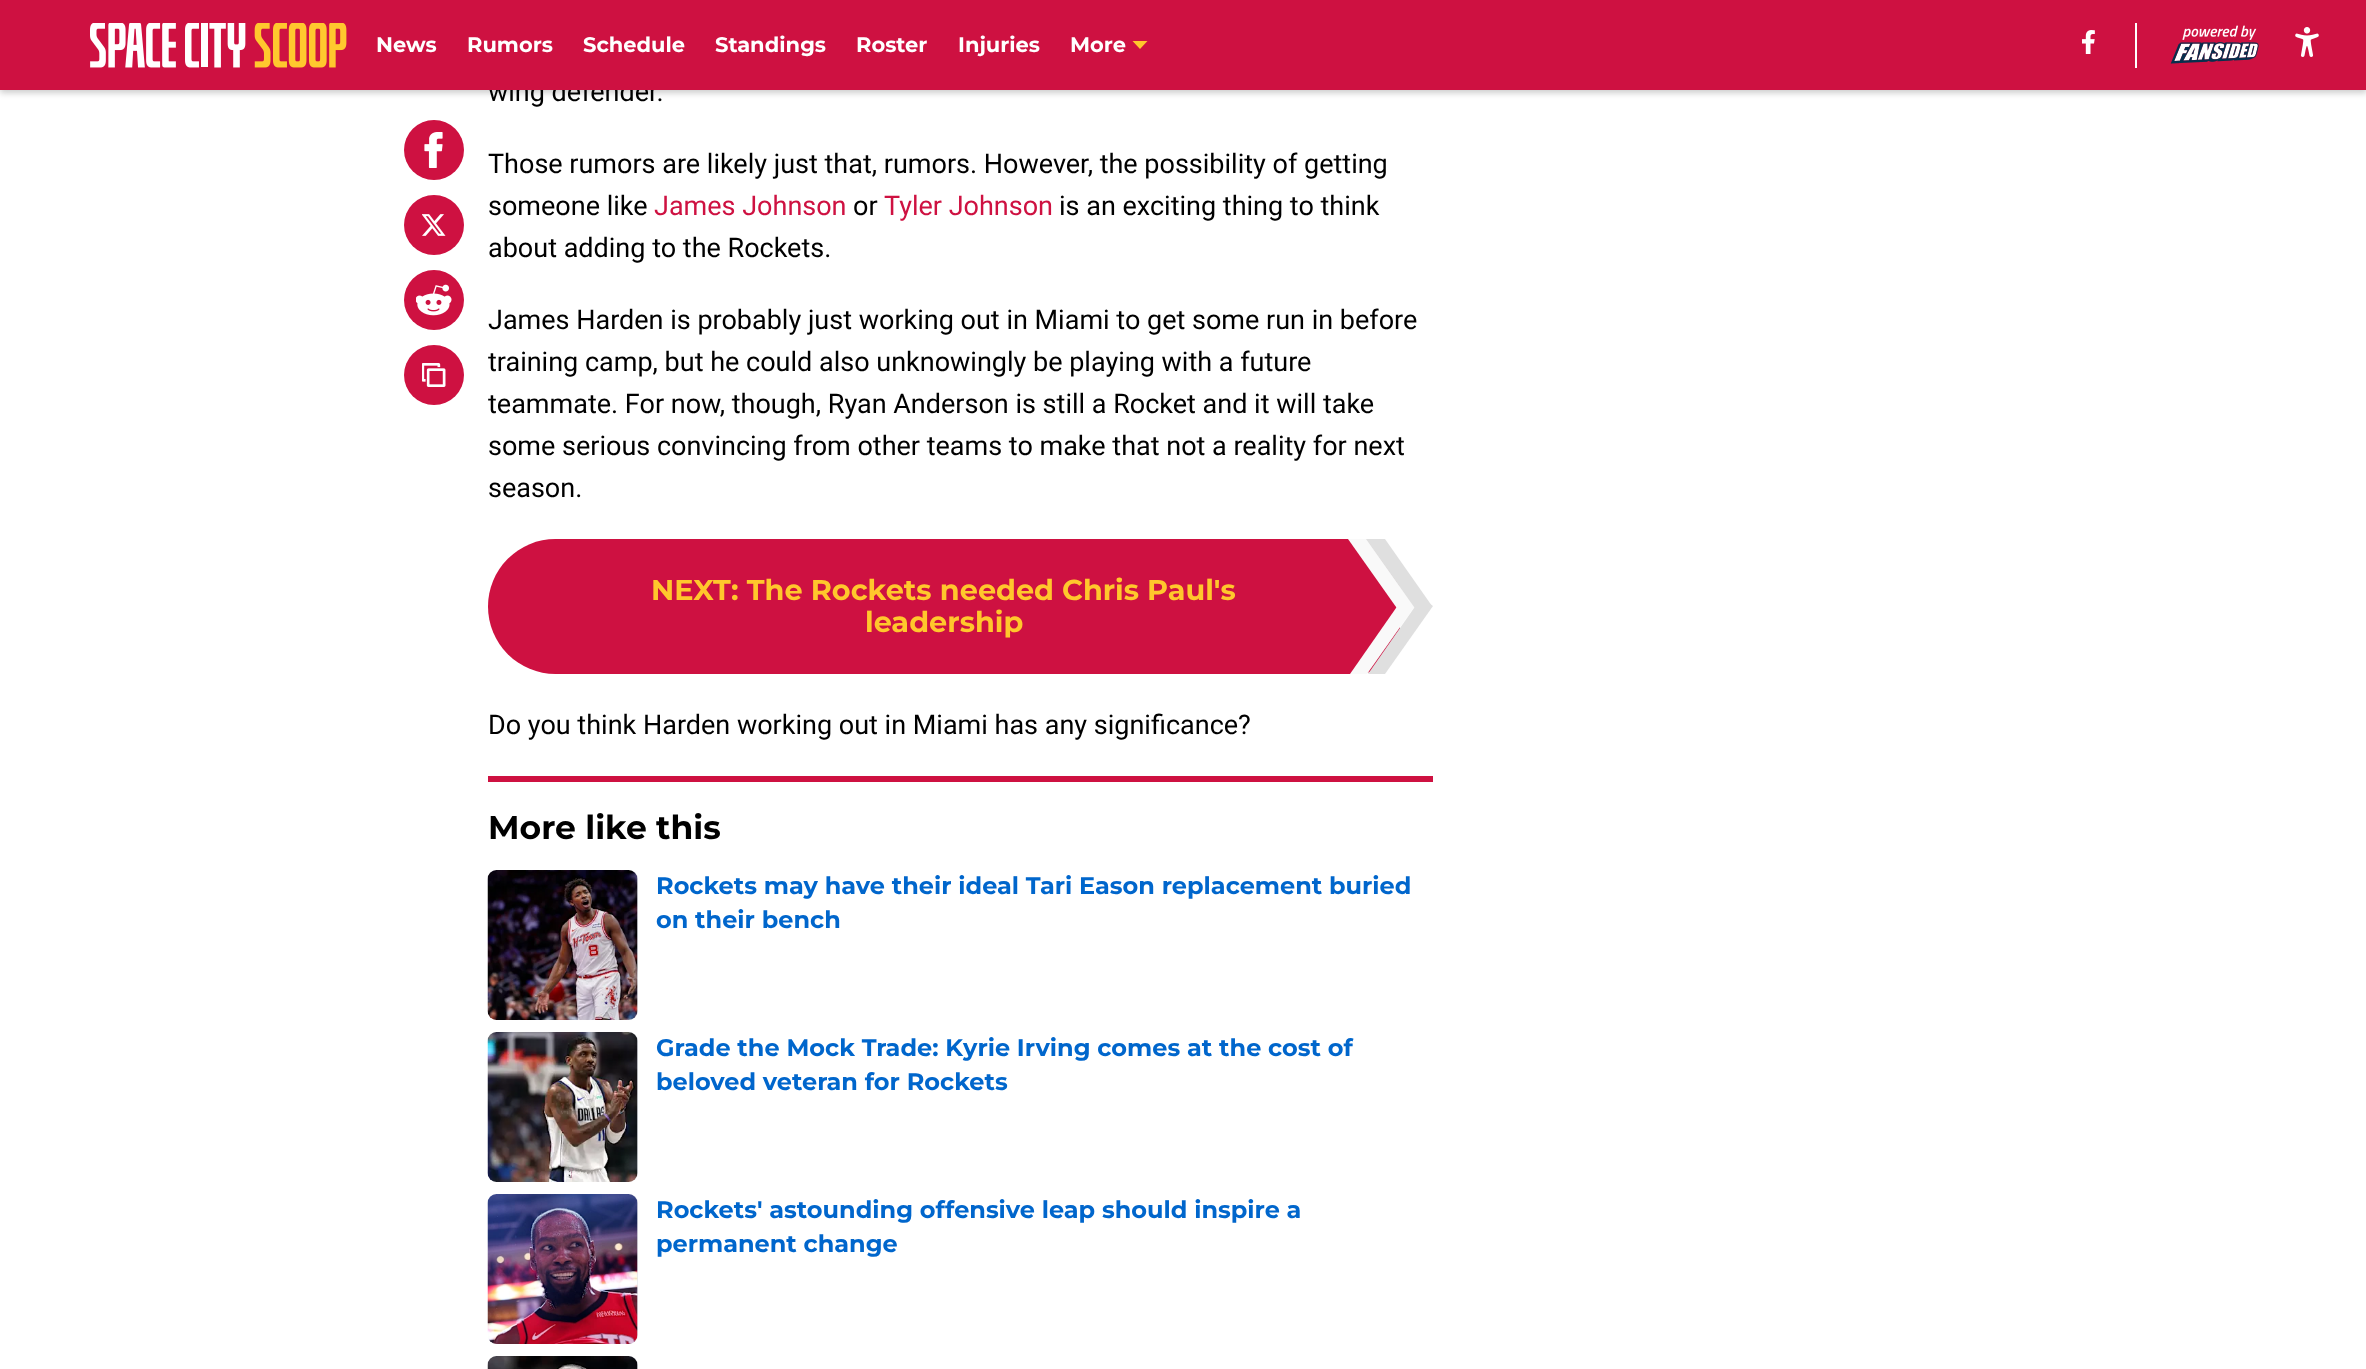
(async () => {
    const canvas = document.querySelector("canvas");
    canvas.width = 2366;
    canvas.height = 1369;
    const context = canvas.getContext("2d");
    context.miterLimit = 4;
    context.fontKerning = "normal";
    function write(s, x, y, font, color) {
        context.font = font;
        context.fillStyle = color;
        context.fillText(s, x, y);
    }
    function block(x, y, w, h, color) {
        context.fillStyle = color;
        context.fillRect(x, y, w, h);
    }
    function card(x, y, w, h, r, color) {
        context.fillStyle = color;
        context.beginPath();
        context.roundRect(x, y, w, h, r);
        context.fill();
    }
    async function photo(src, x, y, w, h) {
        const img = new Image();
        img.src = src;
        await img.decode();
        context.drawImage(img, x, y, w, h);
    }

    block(0, 0, 2366, 1369, "rgb(255, 255, 255)");
    context.fillStyle = "rgba(0, 0, 0, 0.2)";
    context.filter = "blur(3px)";
    context.beginPath();
    context.rect(0, 3, 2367, 90);
    context.fill();
    context.filter = "none";
    write("wing defender.", 488, 101, "27px Roboto", "rgb(0, 0, 0)");
    block(0, 0, 2366, 90, "rgb(206, 17, 65)");
    await photo("media/1.png", 90, 23, 257, 45);
    write("News", 376, 52, "100 21px Montserrat", "rgb(255, 255, 255)");
    write("Rumors", 467, 52, "100 21px Montserrat", "rgb(255, 255, 255)");
    write("Schedule", 583, 52, "100 21px Montserrat", "rgb(255, 255, 255)");
    write("Standings", 715, 52, "100 21px Montserrat", "rgb(255, 255, 255)");
    write("Roster", 856, 52, "100 21px Montserrat", "rgb(255, 255, 255)");
    write("Injuries", 958, 52, "100 21px Montserrat", "rgb(255, 255, 255)");
    write("More", 1070, 52, "100 21px Montserrat", "rgb(255, 255, 255)");
    context.fillStyle = "rgb(255, 199, 44)";
    context.beginPath();
    context.moveTo(1132.5, 41);
    context.lineTo(1140, 49);
    context.lineTo(1147.5, 41);
    context.closePath();
    context.fill("evenodd");
    await photo("media/2.png", 2082, 30, 13, 24);
    block(2135, 23, 2, 45, "rgb(255, 255, 255)");
    await photo("media/3.png", 2170, 25, 89, 39);
    await photo("media/4.png", 2295, 27, 24, 30);
    context.fillStyle = "rgb(206, 17, 65)";
    context.beginPath();
    context.arc(434, 150, 30, 0, Math.PI * 2);
    context.fill();
    await photo("media/5.png", 424, 132, 19, 36);
    context.beginPath();
    context.arc(434, 225, 30, 0, Math.PI * 2);
    context.fill();
    await photo("media/6.png", 422, 214, 24, 22);
    context.beginPath();
    context.arc(434, 300, 30, 0, Math.PI * 2);
    context.fill();
    await photo("media/7.png", 416, 284, 36, 32);
    context.beginPath();
    context.arc(434, 375, 30, 0, Math.PI * 2);
    context.fill();
    await photo("media/8.png", 422, 363, 24, 24);
    write("Those rumors are likely just that, rumors. However, the possibility of getting", 488, 173, "27px Roboto", "rgb(0, 0, 0)");
    write("someone like", 488, 215, "27px Roboto", "rgb(0, 0, 0)");
    write("James Johnson", 654, 215, "27px Roboto", "rgb(206, 17, 65)");
    write("or", 853, 215, "27px Roboto", "rgb(0, 0, 0)");
    write("Tyler Johnson", 884, 215, "27px Roboto", "rgb(206, 17, 65)");
    write("is an exciting thing to think", 1059, 215, "27px Roboto", "rgb(0, 0, 0)");
    write("about adding to the Rockets.", 488, 257, "27px Roboto", "rgb(0, 0, 0)");
    write("James Harden is probably just working out in Miami to get some run in before", 488, 329, "27px Roboto", "rgb(0, 0, 0)");
    write("training camp, but he could also unknowingly be playing with a future", 488, 371, "27px Roboto", "rgb(0, 0, 0)");
    write("teammate. For now, though, Ryan Anderson is still a Rocket and it will take", 488, 413, "27px Roboto", "rgb(0, 0, 0)");
    write("some serious convincing from other teams to make that not a reality for next", 488, 455, "27px Roboto", "rgb(0, 0, 0)");
    write("season.", 488, 497, "27px Roboto", "rgb(0, 0, 0)");
    context.fillStyle = "rgb(206, 17, 65)";
    context.beginPath();
    context.roundRect(488, 539, 912, 135, [67.5, 42, 42, 67.5]);
    context.fill();
    write("NEXT", 651, 600, "100 28.75px Montserrat", "rgb(255, 199, 44)");
    write(": The Rockets needed Chris Paul's", 731, 600, "100 28.75px Montserrat", "rgb(255, 199, 44)");
    write("leadership", 865, 632, "100 28.75px Montserrat", "rgb(255, 199, 44)");
    context.fillStyle = "rgb(249, 249, 249)";
    context.beginPath();
    context.moveTo(1367, 539);
    context.lineTo(1414, 606);
    context.lineTo(1401, 614);
    context.lineTo(1348, 539);
    context.closePath();
    context.fill();
    context.beginPath();
    context.moveTo(1403, 598);
    context.lineTo(1415, 606);
    context.lineTo(1367, 674);
    context.lineTo(1350, 674);
    context.closePath();
    context.fill();
    context.fillStyle = "rgb(223, 223, 223)";
    context.beginPath();
    context.moveTo(1385, 539);
    context.lineTo(1432, 606);
    context.lineTo(1419, 614);
    context.lineTo(1366, 539);
    context.closePath();
    context.fill();
    context.beginPath();
    context.moveTo(1421, 598);
    context.lineTo(1433, 606);
    context.lineTo(1385, 674);
    context.lineTo(1368, 674);
    context.closePath();
    context.fill();
    write("Do you think Harden working out in Miami has any significance?", 488, 734, "27px Roboto", "rgb(0, 0, 0)");
    block(488, 776, 945, 6, "rgb(206, 17, 65)");
    write("More like this", 488, 839, "100 33px Montserrat", "rgb(0, 0, 0)");
    card(488, 870, 150, 150, 9, "rgb(229, 231, 235)");
    await photo("media/9.png", 487, 870, 151, 150);
    write("Rockets may have their ideal Tari Eason replacement buried", 656, 894, "100 24px Montserrat", "rgb(0, 102, 204)");
    write("on their bench", 656, 928, "100 24px Montserrat", "rgb(0, 102, 204)");
    card(488, 1032, 150, 150, 9, "rgb(229, 231, 235)");
    await photo("media/10.png", 487, 1032, 151, 150);
    write("Grade the Mock Trade: Kyrie Irving comes at the cost of", 656, 1056, "100 24px Montserrat", "rgb(0, 102, 204)");
    write("beloved veteran for Rockets", 656, 1090, "100 24px Montserrat", "rgb(0, 102, 204)");
    card(488, 1194, 150, 150, 9, "rgb(229, 231, 235)");
    await photo("media/11.png", 487, 1194, 151, 150);
    write("Rockets' astounding offensive leap should inspire a", 656, 1218, "100 24px Montserrat", "rgb(0, 102, 204)");
    write("permanent change", 656, 1252, "100 24px Montserrat", "rgb(0, 102, 204)");
    card(488, 1356, 150, 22, 9, "rgb(229, 231, 235)");
    await photo("media/12.png", 487, 1356, 151, 13);
})();
